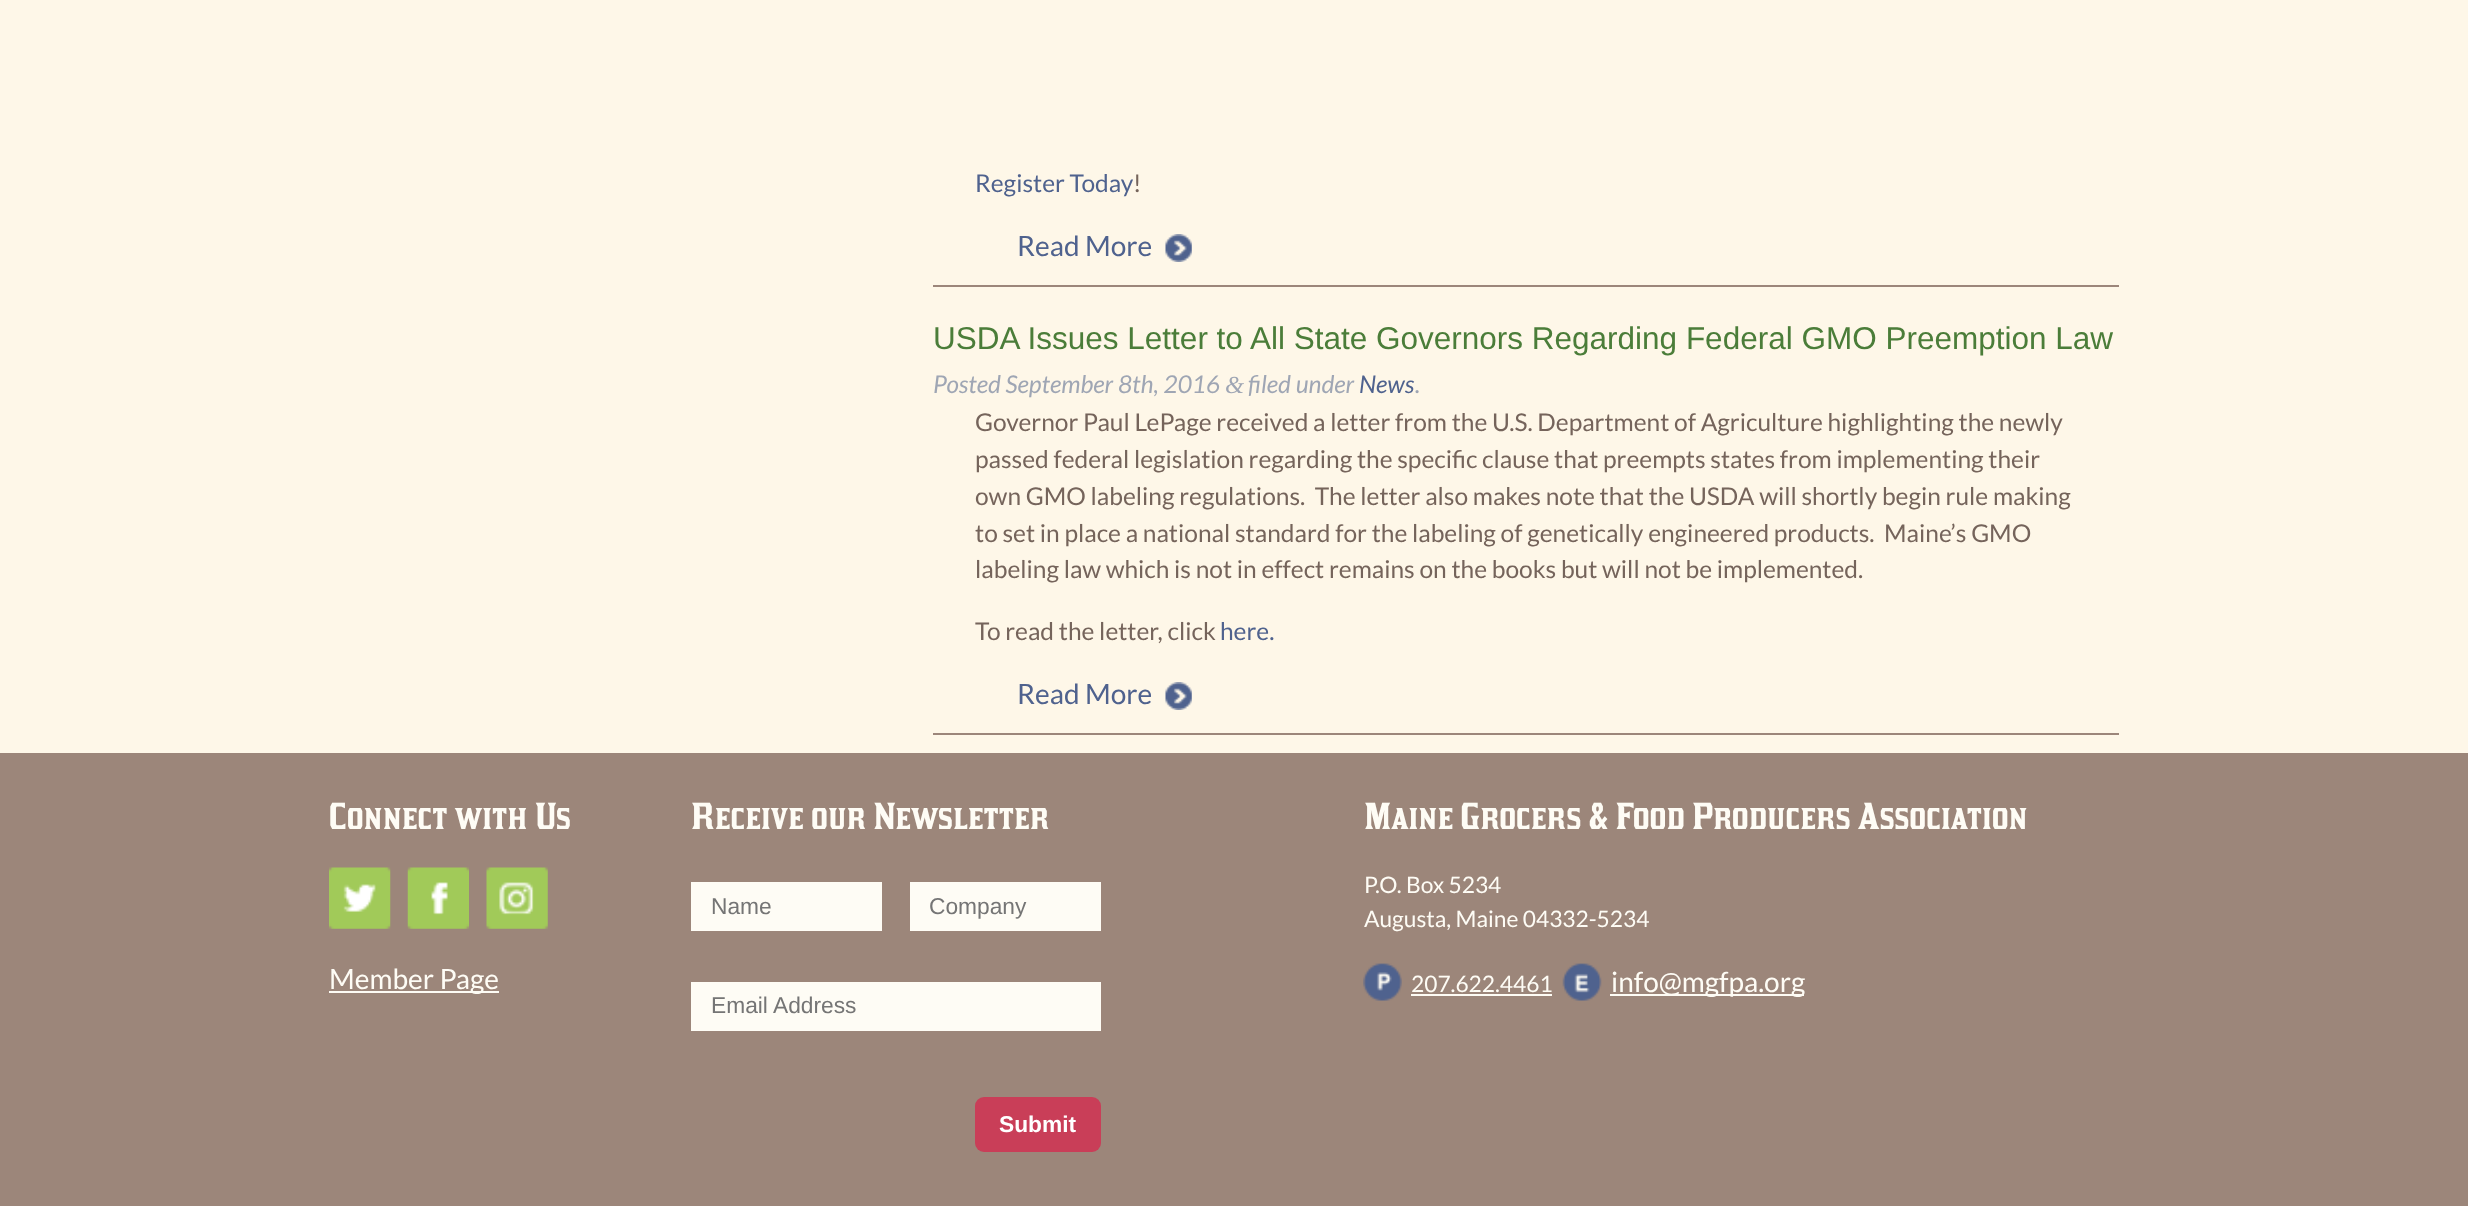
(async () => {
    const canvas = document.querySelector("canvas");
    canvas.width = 2468;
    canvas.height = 1206;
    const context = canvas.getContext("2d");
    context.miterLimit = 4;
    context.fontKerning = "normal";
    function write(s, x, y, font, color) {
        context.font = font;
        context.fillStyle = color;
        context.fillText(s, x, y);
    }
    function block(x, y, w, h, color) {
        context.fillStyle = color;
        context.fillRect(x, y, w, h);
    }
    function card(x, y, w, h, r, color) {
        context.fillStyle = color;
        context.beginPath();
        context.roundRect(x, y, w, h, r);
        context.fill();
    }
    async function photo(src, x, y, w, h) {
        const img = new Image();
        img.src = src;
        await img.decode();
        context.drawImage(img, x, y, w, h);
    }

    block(0, 0, 2468, 1206, "rgb(254, 247, 232)");
    block(933, 285, 1186, 2, "rgb(156, 134, 122)");
    write("Register Today", 975, 192, "24.5px Lato", "rgb(79, 98, 142)");
    write("!", 1133, 192, "24.5px Lato", "rgb(117, 100, 91)");
    write("Read More", 1017, 256, "28px Lato", "rgb(79, 98, 142)");
    await photo("media/1.png", 1165, 234, 27, 28);
    block(933, 733, 1186, 2, "rgb(156, 134, 122)");
    write("USDA Issues Letter to All State Governors Regarding Federal GMO Preemption Law", 933, 349, "31.5px Liberation Sans", "rgb(75, 125, 57)");
    write("Posted September 8th, 2016", 933, 393, "italic 24.5px Lato", "rgb(159, 166, 180)");
    write("&", 1225, 393, "italic 24.5px Liberation Serif", "rgb(159, 166, 180)");
    write("filed under", 1248, 393, "italic 24.5px Lato", "rgb(159, 166, 180)");
    write("News", 1359, 393, "italic 24.5px Lato", "rgb(79, 98, 142)");
    write(".", 1415, 393, "italic 24.5px Lato", "rgb(159, 166, 180)");
    write("Governor Paul LePage received a letter from the U.S. Department of Agriculture highlighting the newly", 975, 431, "24.5px Lato", "rgb(117, 100, 91)");
    write("passed federal legislation regarding the specific clause that preempts states from implementing their", 975, 468, "24.5px Lato", "rgb(117, 100, 91)");
    write("own GMO labeling regulations.  The letter also makes note that the USDA will shortly begin rule making", 975, 505, "24.5px Lato", "rgb(117, 100, 91)");
    write("to set in place a national standard for the labeling of genetically engineered products.  Maine’s GMO", 975, 542, "24.5px Lato", "rgb(117, 100, 91)");
    write("labeling law which is not in effect remains on the books but will not be implemented.", 975, 578, "24.5px Lato", "rgb(117, 100, 91)");
    write("To read the letter, click", 975, 640, "24.5px Lato", "rgb(117, 100, 91)");
    write("here.", 1220, 640, "24.5px Lato", "rgb(79, 98, 142)");
    write("Read More", 1017, 704, "28px Lato", "rgb(79, 98, 142)");
    await photo("media/1.png", 1165, 682, 27, 28);
    block(0, 753, 2468, 453, "rgb(156, 134, 122)");
    write("Connect with Us", 329, 829, "33.25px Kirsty", "rgb(254, 252, 245)");
    await photo("media/2.png", 329, 867, 62, 62);
    await photo("media/3.png", 407, 867, 62, 62);
    await photo("media/4.png", 486, 867, 62, 62);
    block(329, 991, 170, 2, "rgb(254, 252, 245)");
    write("Member Page", 329, 989, "28px Lato", "rgb(254, 252, 245)");
    write("Receive our Newsletter", 691, 829, "33.25px Kirsty", "rgb(254, 252, 245)");
    block(691, 882, 191, 49, "rgb(254, 252, 245)");
    write("Name", 711, 914, "22.75px Liberation Sans", "rgb(117, 117, 117)");
    block(910, 882, 191, 49, "rgb(254, 252, 245)");
    write("Company", 929, 914, "22.75px Liberation Sans", "rgb(117, 117, 117)");
    block(691, 982, 410, 49, "rgb(254, 252, 245)");
    write("Email Address", 711, 1013, "22.75px Liberation Sans", "rgb(117, 117, 117)");
    card(975, 1097, 126, 55, 9, "rgb(201, 62, 88)");
    write("Submit", 999, 1132, "bold 22.75px Liberation Sans", "rgb(255, 255, 255)");
    write("Maine Grocers & Food Producers Association", 1364, 829, "33.25px Kirsty", "rgb(254, 252, 245)");
    write("P.O. Box 5234", 1364, 893, "22.75px Lato", "rgb(254, 252, 245)");
    write("Augusta, Maine 04332-5234", 1364, 927, "22.75px Lato", "rgb(254, 252, 245)");
    await photo("media/5.png", 1363, 963, 39, 38);
    write("207.622.4461", 1411, 992, "22.75px Lato", "rgb(254, 252, 245)");
    block(1411, 994, 141, 2, "rgb(254, 252, 245)");
    await photo("media/6.png", 1562, 963, 40, 38);
    block(1610, 994, 194, 2, "rgb(254, 252, 245)");
    write("info@mgfpa.org", 1611, 992, "28px Lato", "rgb(254, 252, 245)");
})();
